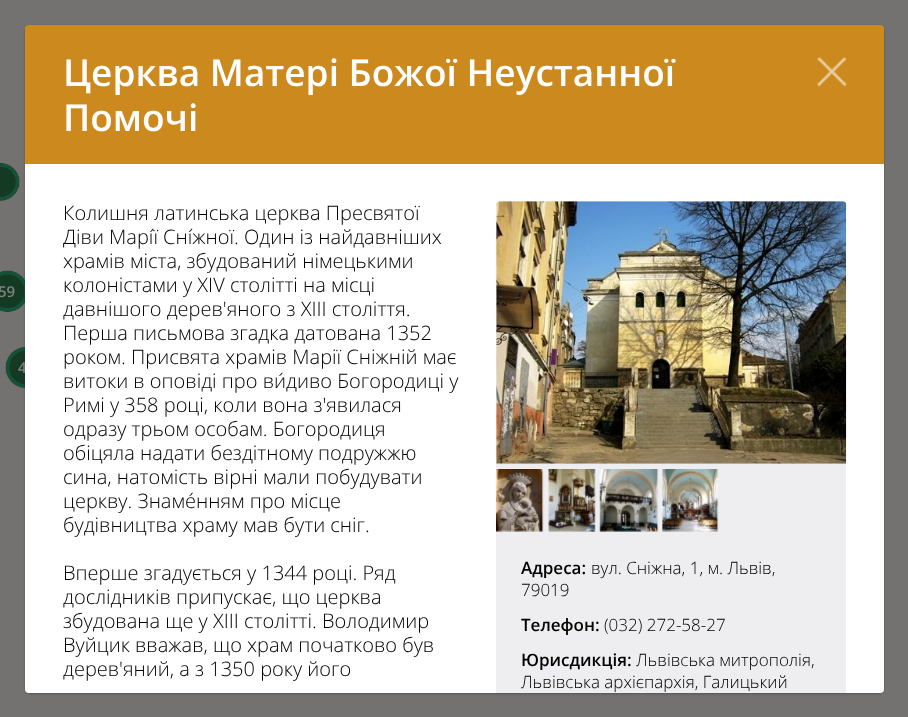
(async () => {
    const canvas = document.querySelector("canvas");
    canvas.width = 908;
    canvas.height = 717;
    const context = canvas.getContext("2d");
    context.miterLimit = 4;
    context.fontKerning = "normal";
    function write(s, x, y, font, color) {
        context.font = font;
        context.fillStyle = color;
        context.fillText(s, x, y);
    }
    function block(x, y, w, h, color) {
        context.fillStyle = color;
        context.fillRect(x, y, w, h);
    }
    async function photo(src, x, y, w, h) {
        const img = new Image();
        img.src = src;
        await img.decode();
        context.drawImage(img, x, y, w, h);
    }

    block(0, 0, 908, 717, "rgb(115, 114, 112)");
    await photo("media/1.png", 0, 163, 20, 38);
    await photo("media/2.png", 0, 270, 25, 42);
    write("59", -2, 297, "600 15px Open Sans", "rgb(128, 128, 128)");
    await photo("media/3.png", 5, 347, 20, 41);
    write("4", 18, 373, "600 15px Open Sans", "rgb(128, 128, 128)");
    context.fillStyle = "rgba(0, 0, 0, 0.25)";
    context.filter = "blur(1px)";
    context.beginPath();
    context.roundRect(25, 26, 859, 668, 6);
    context.fill();
    context.filter = "none";
    context.fillStyle = "rgb(255, 255, 255)";
    context.beginPath();
    context.roundRect(25, 25, 859, 668, [6, 6, 4, 4]);
    context.fill();
    context.fillStyle = "rgb(204, 138, 30)";
    context.beginPath();
    context.roundRect(25, 25, 859, 139, [4, 4, 0, 0]);
    context.fill();
    write("Церква Матері Божої Неустанної", 63, 86, "600 37px Open Sans", "rgb(255, 255, 255)");
    write("Помочі", 63, 131, "600 37px Open Sans", "rgb(255, 255, 255)");
    await photo("media/4.png", 817, 57, 30, 30);
    write("Колишня латинська церква Пресвятої", 63, 220, "300 20px Open Sans", "rgb(0, 0, 0)");
    write("Діви Марі́ї Сні́жної. Один із найдавніших", 63, 244, "300 20px Open Sans", "rgb(0, 0, 0)");
    write("храмів міста, збудований німецькими", 63, 268, "300 20px Open Sans", "rgb(0, 0, 0)");
    write("колоністами у XIV столітті на місці", 63, 292, "300 20px Open Sans", "rgb(0, 0, 0)");
    write("давнішого дерев'яного з XIII століття.", 63, 316, "300 20px Open Sans", "rgb(0, 0, 0)");
    write("Перша письмова згадка датована 1352", 63, 340, "300 20px Open Sans", "rgb(0, 0, 0)");
    write("роком. Присвята храмів Марії Сніжній має", 63, 364, "300 20px Open Sans", "rgb(0, 0, 0)");
    write("витоки в оповіді про ви́диво Богородиці у", 63, 388, "300 20px Open Sans", "rgb(0, 0, 0)");
    write("Римі у 358 році, коли вона з'явилася", 63, 412, "300 20px Open Sans", "rgb(0, 0, 0)");
    write("одразу трьом особам. Богородиця", 63, 436, "300 20px Open Sans", "rgb(0, 0, 0)");
    write("обіцяла надати бездітному подружжю", 63, 460, "300 20px Open Sans", "rgb(0, 0, 0)");
    write("сина, натомість вірні мали побудувати", 63, 484, "300 20px Open Sans", "rgb(0, 0, 0)");
    write("церкву. Знаме́нням про місце", 63, 508, "300 20px Open Sans", "rgb(0, 0, 0)");
    write("будівництва храму мав бути сніг.", 63, 532, "300 20px Open Sans", "rgb(0, 0, 0)");
    write("Вперше згадується у 1344 році. Ряд", 63, 580, "300 20px Open Sans", "rgb(0, 0, 0)");
    write("дослідників припускає, що церква", 63, 604, "300 20px Open Sans", "rgb(0, 0, 0)");
    write("збудована ще у XIII столітті. Володимир", 63, 628, "300 20px Open Sans", "rgb(0, 0, 0)");
    write("Вуйцик вважав, що храм початково був", 63, 652, "300 20px Open Sans", "rgb(0, 0, 0)");
    write("дерев'яний, а з 1350 року його", 63, 676, "300 20px Open Sans", "rgb(0, 0, 0)");
    context.fillStyle = "rgb(238, 238, 240)";
    context.beginPath();
    context.roundRect(496, 201, 350, 492, [4, 4, 0, 0]);
    context.fill();
    await photo("media/5.png", 496, 201, 351, 263);
    await photo("media/6.png", 496, 469, 48, 63);
    await photo("media/7.png", 548, 469, 48, 63);
    await photo("media/8.png", 599, 469, 60, 63);
    await photo("media/9.png", 662, 469, 57, 63);
    write("Адреса:", 521, 574, "600 17px Open Sans", "rgb(0, 0, 0)");
    write("вул. Сніжна, 1, м. Львів,", 591, 574, "300 17px Open Sans", "rgb(0, 0, 0)");
    write("79019", 521, 596, "300 17px Open Sans", "rgb(0, 0, 0)");
    write("Телефон:", 521, 631, "600 17px Open Sans", "rgb(0, 0, 0)");
    write("(032) 272-58-27", 604, 631, "300 17px Open Sans", "rgb(0, 0, 0)");
    write("Юрисдикція:", 521, 666, "600 17px Open Sans", "rgb(0, 0, 0)");
    write("Львівська митрополія,", 636, 666, "300 17px Open Sans", "rgb(0, 0, 0)");
    write("Львівська архієпархія, Галицький", 521, 688, "300 17px Open Sans", "rgb(0, 0, 0)");
})();
